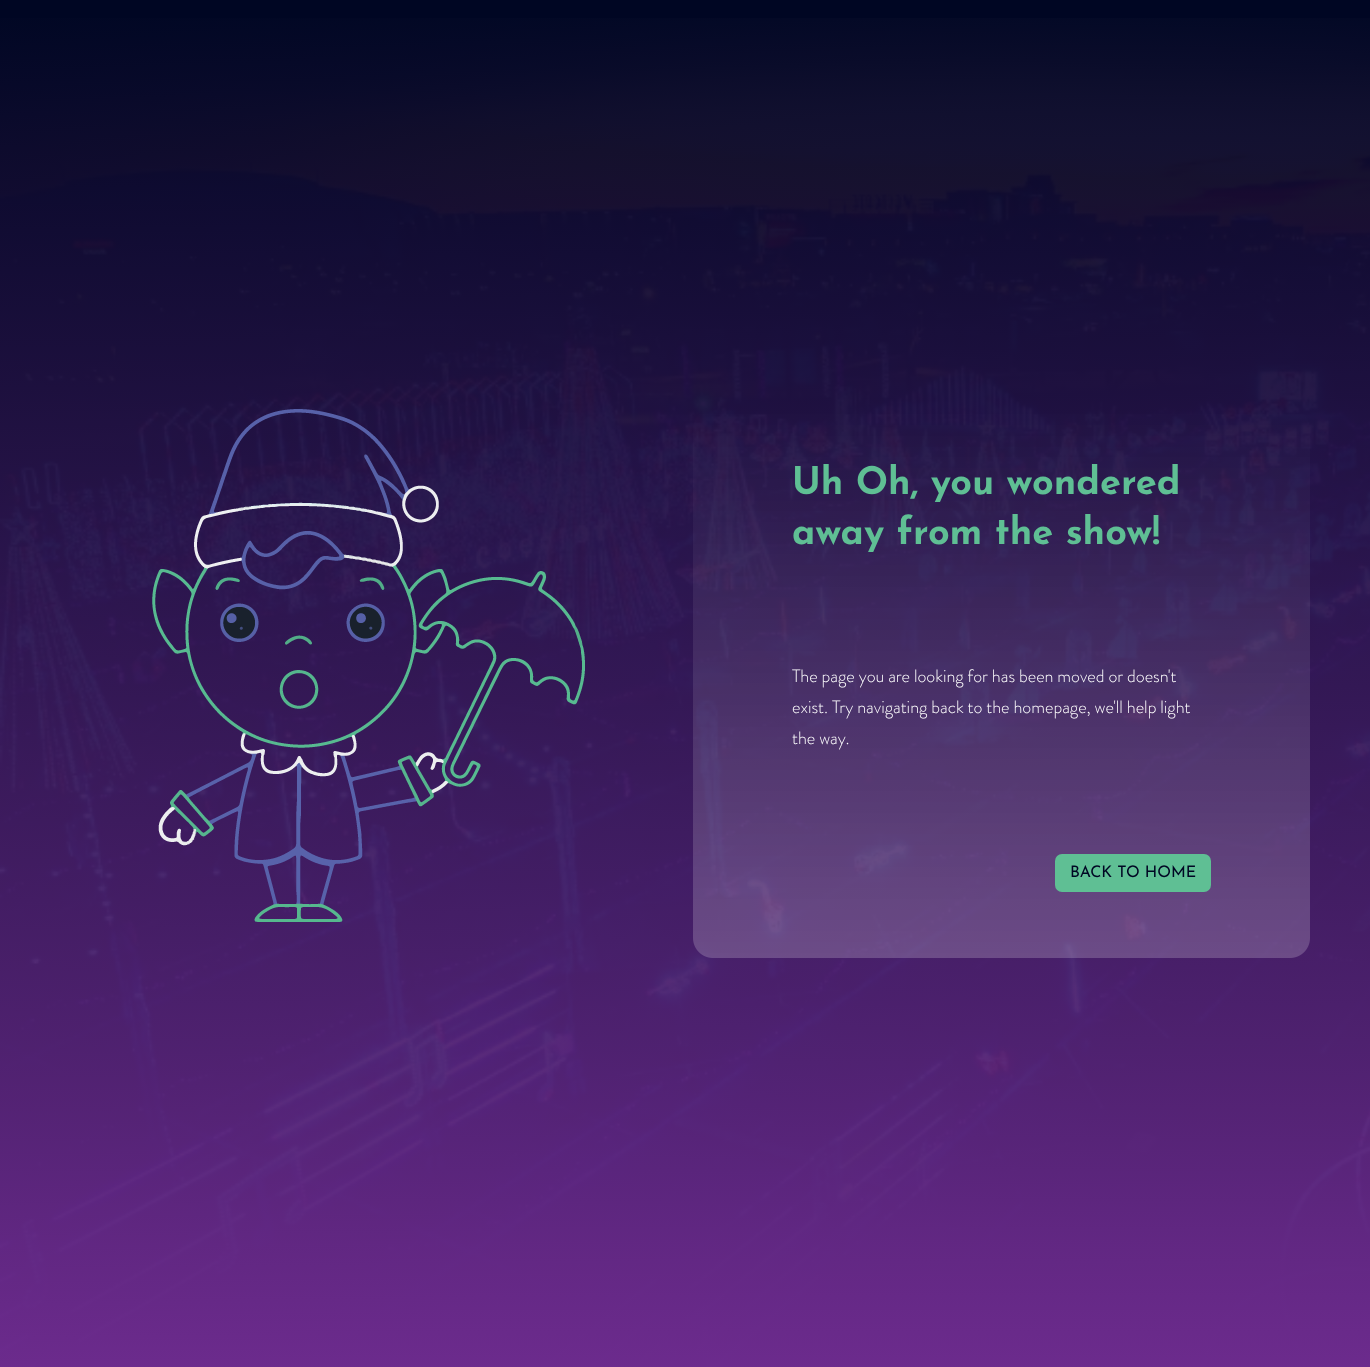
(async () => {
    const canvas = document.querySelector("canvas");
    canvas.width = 1370;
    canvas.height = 1367;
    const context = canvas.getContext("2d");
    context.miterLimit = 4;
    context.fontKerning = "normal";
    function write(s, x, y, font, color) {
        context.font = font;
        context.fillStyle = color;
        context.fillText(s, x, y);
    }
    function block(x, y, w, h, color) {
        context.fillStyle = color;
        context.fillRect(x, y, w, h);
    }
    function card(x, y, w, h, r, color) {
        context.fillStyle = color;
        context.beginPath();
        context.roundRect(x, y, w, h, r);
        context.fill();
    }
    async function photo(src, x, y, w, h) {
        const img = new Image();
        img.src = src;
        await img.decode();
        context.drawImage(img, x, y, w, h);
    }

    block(0, 0, 1370, 1367, "rgb(0, 6, 35)");
    await photo("media/1.png", 0, 18, 1370, 1349);
    await photo("media/2.png", 152, 409, 433, 513);
    write("Uh Oh, you wondered", 792, 494, "bold 38px Josefin Sans", "rgb(95, 191, 148)");
    write("away from the show!", 792, 544, "bold 38px Josefin Sans", "rgb(95, 191, 148)");
    write("The page you are looking for has been moved or doesn't", 792, 682, "300 18px Brandon Grotesque", "rgb(255, 255, 255)");
    write("exist. Try navigating back to the homepage, we'll help light", 792, 713, "300 18px Brandon Grotesque", "rgb(255, 255, 255)");
    write("the way.", 792, 744, "300 18px Brandon Grotesque", "rgb(255, 255, 255)");
    card(1055, 854, 156, 38, 7, "rgb(95, 191, 148)");
    write("BACK TO HOME", 1070, 877, "16px Josefin Sans", "rgb(0, 6, 35)");
})();
